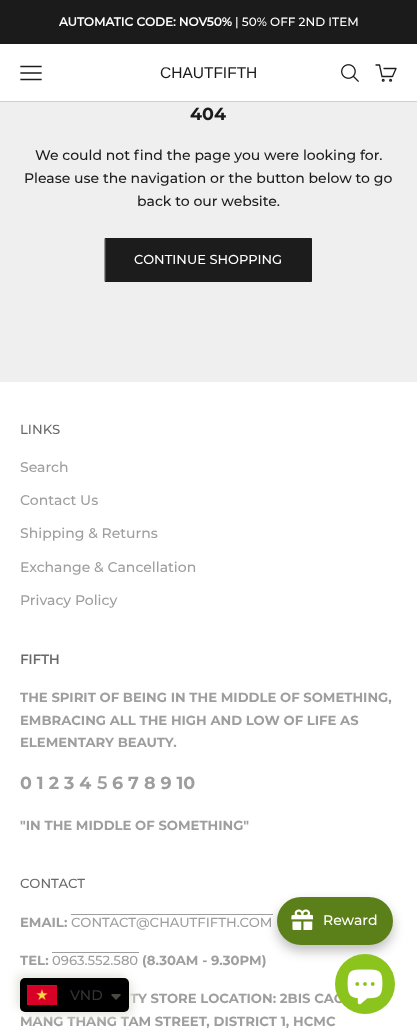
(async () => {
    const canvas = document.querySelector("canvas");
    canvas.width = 417;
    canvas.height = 1035;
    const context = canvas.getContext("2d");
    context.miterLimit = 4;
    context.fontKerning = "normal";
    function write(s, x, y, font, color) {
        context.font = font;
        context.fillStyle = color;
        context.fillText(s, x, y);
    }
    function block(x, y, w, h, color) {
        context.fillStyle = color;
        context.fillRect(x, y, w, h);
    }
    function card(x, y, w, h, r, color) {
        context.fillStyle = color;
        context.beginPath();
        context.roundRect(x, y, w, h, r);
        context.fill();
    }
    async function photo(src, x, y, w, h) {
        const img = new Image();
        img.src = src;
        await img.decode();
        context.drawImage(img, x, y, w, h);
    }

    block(0, 0, 417, 1035, "rgb(239, 239, 239)");
    block(0, 0, 417, 44, "rgb(28, 27, 27)");
    write("AUTOMATIC CODE: NOV50%", 59, 26, "bold 12px 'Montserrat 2'", "rgb(255, 255, 255)");
    write("| 50% OFF 2ND ITEM", 235, 26, "500 12px Montserrat", "rgb(255, 255, 255)");
    block(0, 44, 417, 57, "rgb(255, 255, 255)");
    block(0, 101, 417, 1, "rgb(207, 207, 207)");
    context.beginPath();
    context.moveTo(21, 79.5);
    context.lineTo(41, 79.5);
    context.moveTo(21, 73);
    context.lineTo(41, 73);
    context.moveTo(21, 66.5);
    context.lineTo(41, 66.5);
    context.strokeStyle = "rgb(28, 28, 28)";
    context.lineWidth = 1.3;
    context.lineCap = "square";
    context.stroke();
    write("CHAUTFIFTH", 160, 78, "15.5px Liberation Sans", "rgb(28, 27, 27)");
    await photo("media/1.png", 341, 64, 18, 18);
    context.beginPath();
    context.moveTo(384, 68.5);
    context.lineTo(396, 68.5);
    context.lineTo(392.5, 76.5);
    context.lineTo(382, 76.5);
    context.lineTo(379.5, 65);
    context.lineTo(376, 65);
    context.lineCap = "round";
    context.lineJoin = "round";
    context.stroke();
    context.beginPath();
    context.arc(383.2, 80.3, 0.9, 0, Math.PI * 2);
    context.stroke();
    context.beginPath();
    context.arc(390.6, 80.3, 0.9, 0, Math.PI * 2);
    context.stroke();
    write("404", 190, 120, "bold 17.5px Montserrat", "rgb(28, 27, 27)");
    write("We could not find the page you were looking for.", 35, 160, "500 14px Montserrat", "rgb(28, 27, 27)");
    write("Please use the navigation or the button below to go", 24, 183, "500 14px Montserrat", "rgb(28, 27, 27)");
    write("back to our website.", 137, 206, "500 14px Montserrat", "rgb(28, 27, 27)");
    context.fillStyle = "rgb(28, 28, 28)";
    context.beginPath();
    context.rect(105.5, 238.5, 206, 43);
    context.fill();
    context.lineWidth = 1;
    context.lineJoin = "miter";
    context.stroke();
    write("CONTINUE SHOPPING", 134, 264, "500 13px Montserrat", "rgb(255, 255, 255)");
    block(0, 382, 417, 653, "rgb(255, 255, 255)");
    write("LINKS", 20, 434, "500 13.2px Montserrat", "rgb(106, 106, 106)");
    write("Search", 20, 472, "500 14px Montserrat", "rgb(158, 158, 158)");
    write("Contact Us", 20, 505, "500 14px Montserrat", "rgb(158, 158, 158)");
    write("Shipping & Returns", 20, 538, "500 14px Montserrat", "rgb(158, 158, 158)");
    write("Exchange & Cancellation", 20, 572, "500 14px Montserrat", "rgb(158, 158, 158)");
    write("Privacy Policy", 20, 605, "500 14px Montserrat", "rgb(158, 158, 158)");
    write("FIFTH", 20, 664, "bold 13.2px 'Montserrat 2'", "rgb(106, 106, 106)");
    write("THE SPIRIT OF BEING IN THE MIDDLE OF SOMETHING,", 20, 702, "bold 13.2px Montserrat", "rgb(158, 158, 158)");
    write("EMBRACING ALL THE HIGH AND LOW OF LIFE AS", 20, 725, "bold 13.2px Montserrat", "rgb(158, 158, 158)");
    write("ELEMENTARY BEAUTY.", 20, 747, "bold 13.2px Montserrat", "rgb(158, 158, 158)");
    write("0 1 2 3 4", 20, 789, "bold 17.5px Montserrat", "rgb(158, 158, 158)");
    write("5", 97, 789, "bold 17.5px 'Montserrat 2'", "rgb(158, 158, 158)");
    write("6 7 8 9 10", 112, 789, "bold 17.5px Montserrat", "rgb(158, 158, 158)");
    write("\"IN THE MIDDLE OF SOMETHING\"", 20, 830, "bold 13.2px Montserrat", "rgb(158, 158, 158)");
    write("CONTACT", 20, 888, "500 13.2px Montserrat", "rgb(106, 106, 106)");
    write("EMAIL:", 20, 927, "bold 13.2px Montserrat", "rgb(158, 158, 158)");
    write("CONTACT@CHAUTFIFTH.COM", 71, 927, "500 13.2px Montserrat", "rgb(158, 158, 158)");
    block(71, 914, 202, 1, "rgb(158, 158, 158)");
    write("TEL:", 20, 965, "bold 13.2px Montserrat", "rgb(158, 158, 158)");
    write("0963.552.580", 52, 965, "500 13.2px Montserrat", "rgb(158, 158, 158)");
    block(52, 952, 87, 1, "rgb(158, 158, 158)");
    write("(8.30AM - 9.30PM)", 142, 965, "bold 13.2px Montserrat", "rgb(158, 158, 158)");
    write("TY STORE LOCATION: 2BIS CAC", 130, 1003, "bold 13.2px Montserrat", "rgb(158, 158, 158)");
    write("MANG THANG TAM STREET, DISTRICT 1, HCMC", 20, 1026, "bold 13.2px Montserrat", "rgb(158, 158, 158)");
    context.fillStyle = "rgba(0, 0, 0, 0.25)";
    context.filter = "blur(6px)";
    context.beginPath();
    context.roundRect(277, 903, 116, 48, 24);
    context.fill();
    context.filter = "none";
    card(277, 897, 116, 48, 24, "rgb(92, 128, 25)");
    await photo("media/2.png", 291, 909, 22, 21);
    write("Reward", 323, 925, "500 14px Montserrat", "rgb(255, 255, 255)");
    context.fillStyle = "rgb(232, 232, 226)";
    context.filter = "blur(4.5px)";
    context.beginPath();
    context.roundRect(16, 974, 109, 34, 5);
    context.fill();
    context.filter = "none";
    context.filter = "blur(4.5px)";
    context.beginPath();
    context.roundRect(24, 982, 109, 34, 5);
    context.fill();
    context.filter = "none";
    card(20, 978, 109, 34, 5, "rgb(0, 0, 0)");
    await photo("media/3.png", 27, 985, 30, 20);
    write("VND", 70, 1000, "500 14px Montserrat", "rgb(51, 51, 51)");
    context.fillStyle = "rgb(71, 73, 66)";
    context.beginPath();
    context.moveTo(113, 994);
    context.bezierCurveTo(112, 994, 111.5, 994.5, 111, 995);
    context.lineTo(116, 1000);
    context.lineTo(121, 995);
    context.lineTo(120, 994);
    context.closePath();
    context.fill();
    context.fillStyle = "rgb(139, 196, 29)";
    context.beginPath();
    context.arc(365, 984, 30, 0, Math.PI * 2);
    context.fill();
    await photo("media/4.png", 347, 969, 36, 36);
})();
